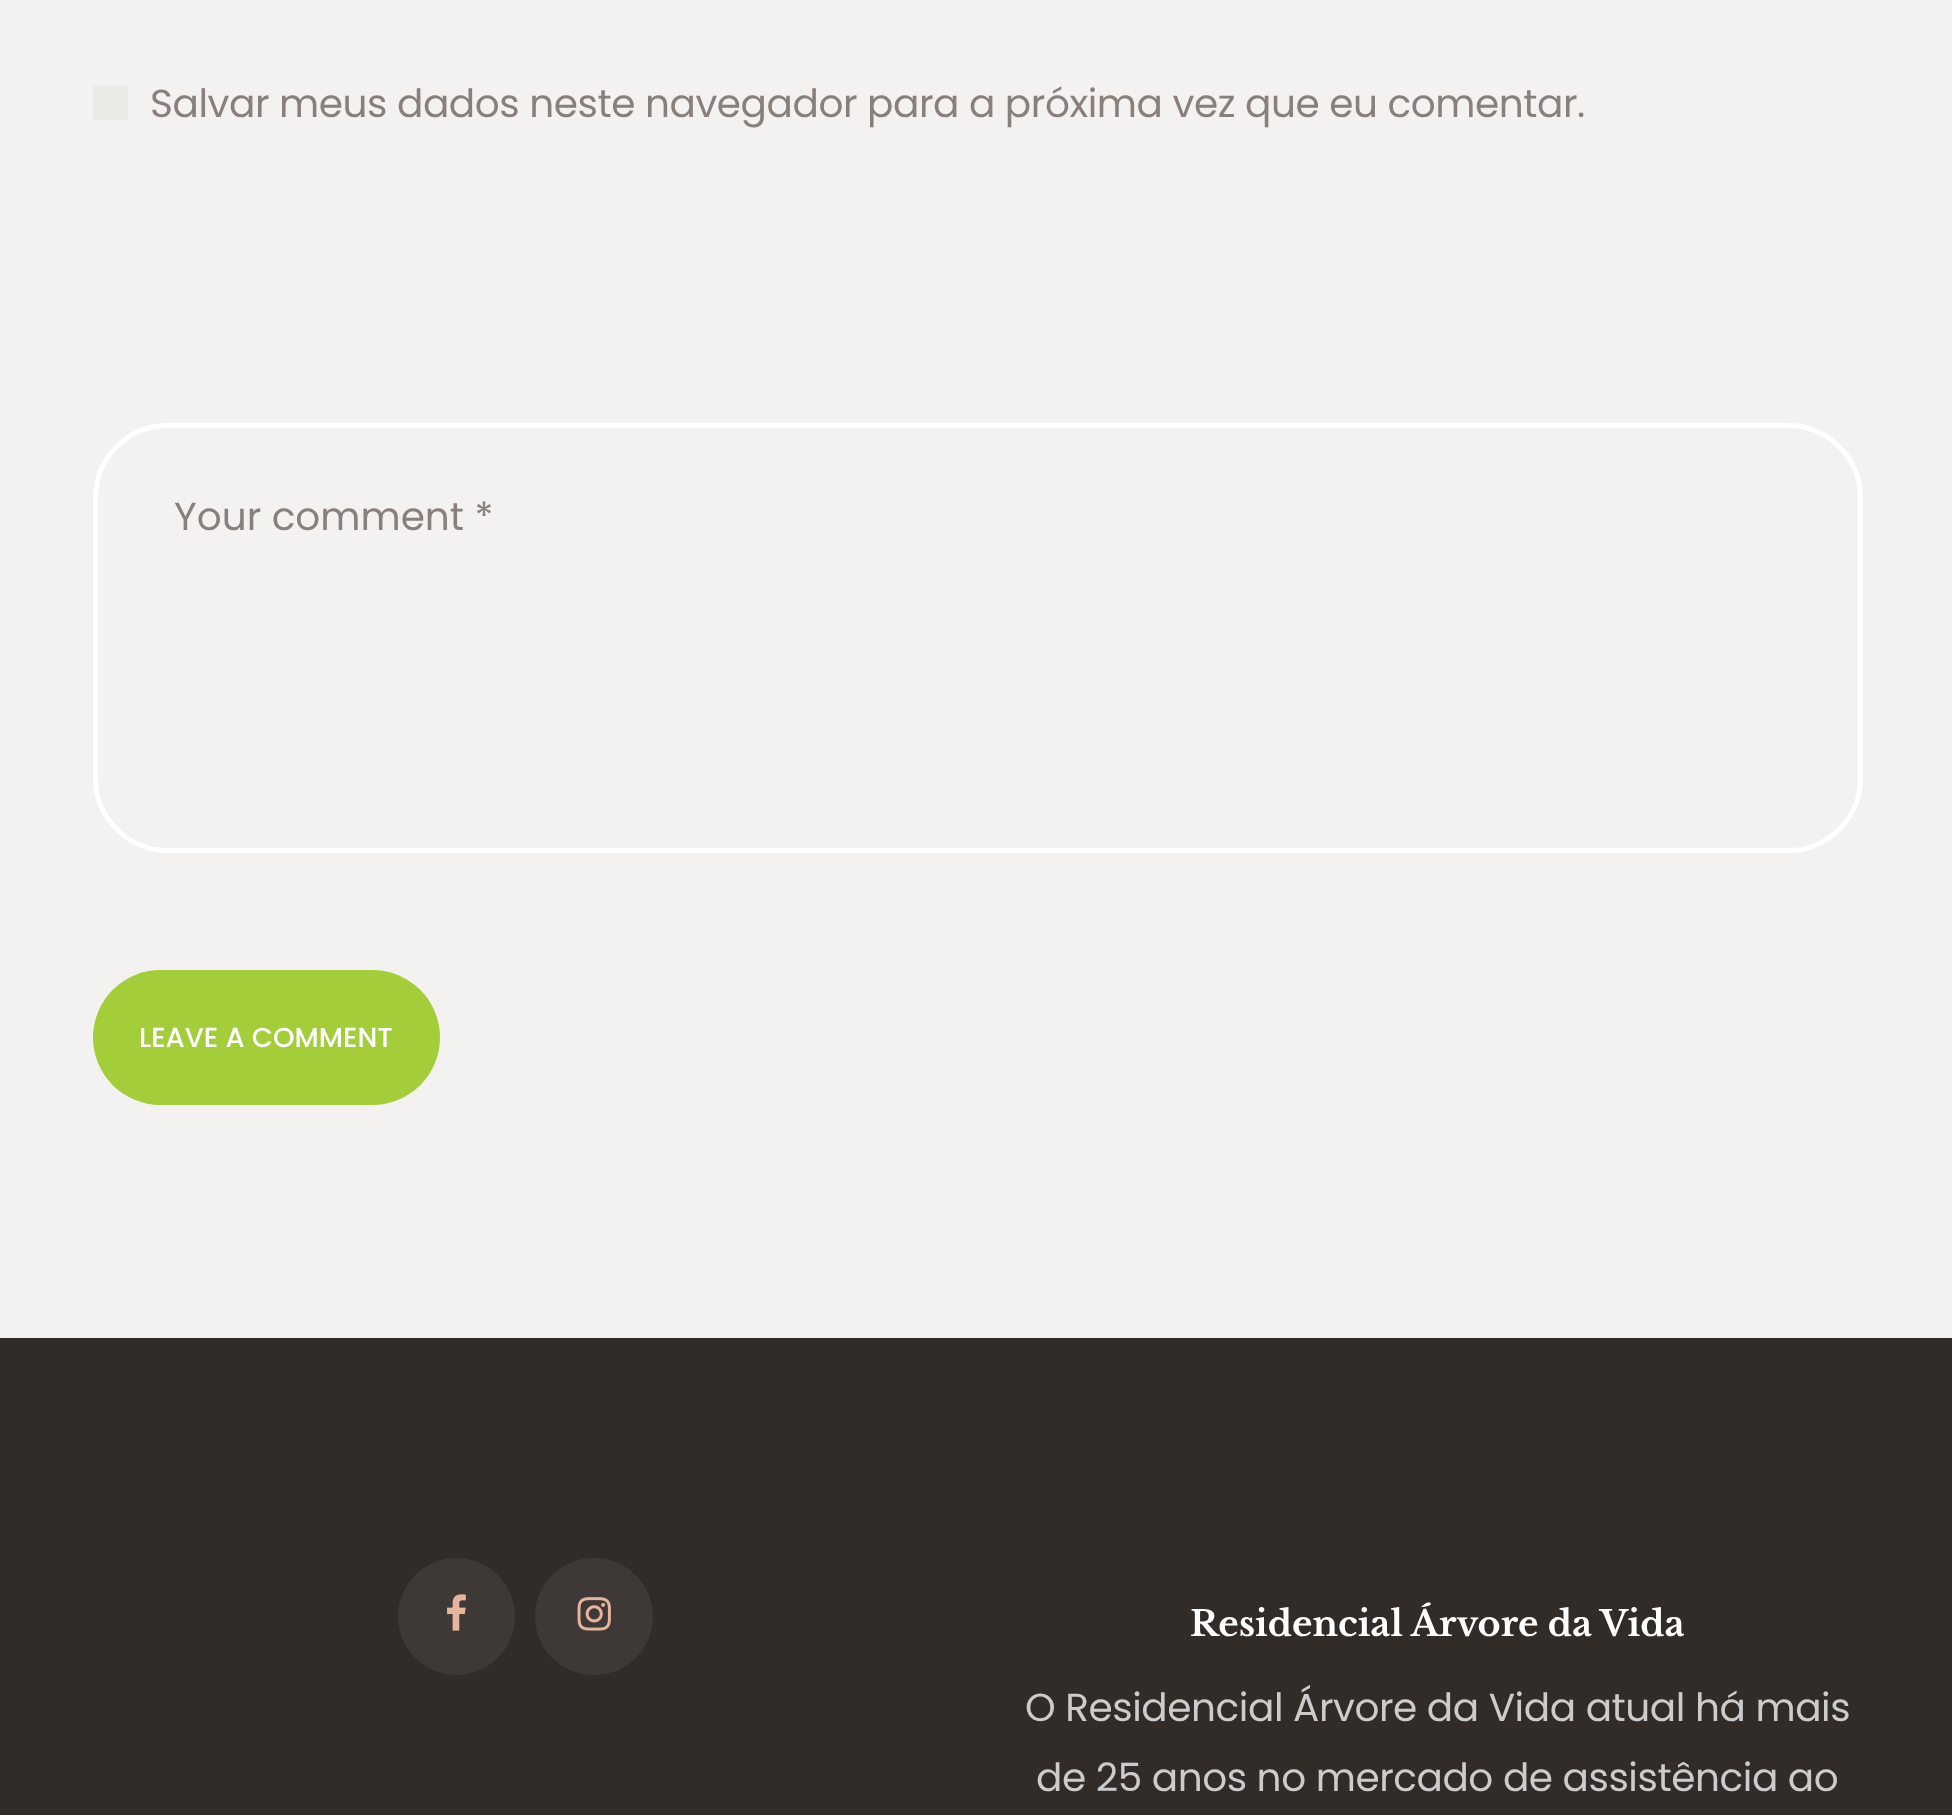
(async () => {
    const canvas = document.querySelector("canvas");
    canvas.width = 1952;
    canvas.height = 1815;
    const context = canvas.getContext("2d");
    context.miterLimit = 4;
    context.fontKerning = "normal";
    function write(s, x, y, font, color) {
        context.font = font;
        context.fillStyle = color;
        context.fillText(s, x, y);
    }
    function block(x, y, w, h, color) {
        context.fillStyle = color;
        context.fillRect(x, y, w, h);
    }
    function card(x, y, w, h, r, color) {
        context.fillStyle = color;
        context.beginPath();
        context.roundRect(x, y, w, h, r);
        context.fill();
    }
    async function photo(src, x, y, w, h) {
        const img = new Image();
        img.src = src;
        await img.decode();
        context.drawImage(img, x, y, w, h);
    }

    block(0, 0, 1952, 1815, "rgb(243, 242, 240)");
    block(93, 85, 35, 35, "rgb(236, 234, 230)");
    context.letterSpacing = "-0.43px";
    write("Salvar meus dados neste navegador para a próxima vez que eu comentar.", 150, 117, "39px Poppins", "rgb(137, 128, 124)");
    context.beginPath();
    context.roundRect(95.5, 425.5, 1765, 425, 72.5);
    context.strokeStyle = "rgb(255, 255, 255)";
    context.lineWidth = 5;
    context.stroke();
    context.letterSpacing = "0px";
    write("Your comment *", 174, 530, "39px Poppins", "rgb(137, 128, 124)");
    card(93, 970, 347, 135, 67.5, "rgb(163, 205, 57)");
    write("LEAVE A COMMENT", 139, 1047, "500 27.5px Poppins", "rgb(255, 255, 255)");
    block(0, 1338, 1952, 477, "rgb(50, 44, 41)");
    context.fillStyle = "rgb(62, 56, 54)";
    context.beginPath();
    context.arc(456.5, 1616.5, 58.5, 0, Math.PI * 2);
    context.fill();
    await photo("media/1.png", 447, 1594, 19, 37);
    card(535, 1558, 118, 117, 58.5, "rgb(62, 56, 54)");
    await photo("media/2.png", 577, 1597, 34, 34);
    write("Residencial Árvore da Vida", 1190, 1636, "bold 35px Libre Baskerville", "rgb(255, 255, 255)");
    context.letterSpacing = "-0.43px";
    write("O Residencial Árvore da Vida atual há mais", 1025, 1721, "39px Poppins", "rgb(204, 204, 204)");
    write("de 25 anos no mercado de assistência ao", 1036, 1791, "39px Poppins", "rgb(204, 204, 204)");
})();
